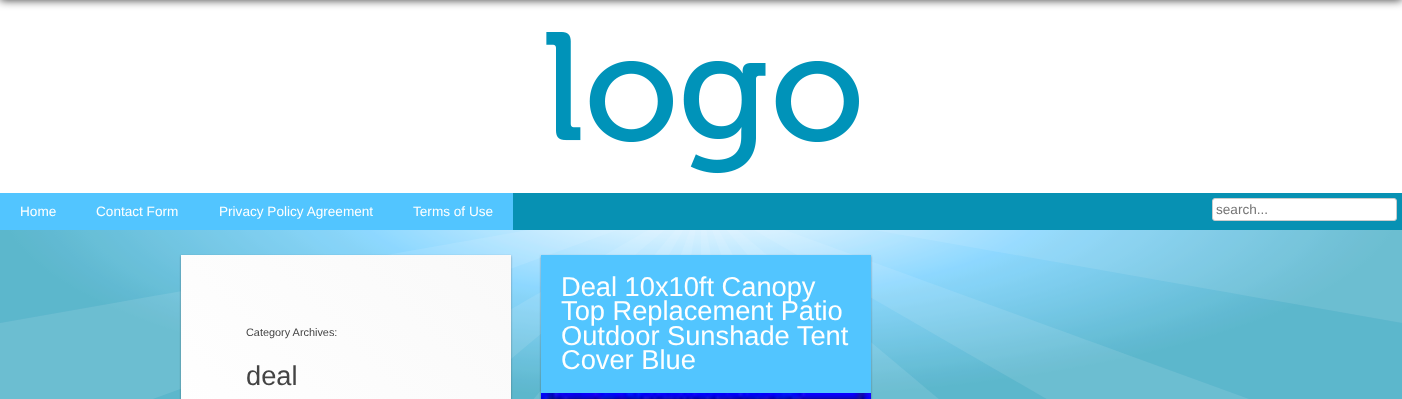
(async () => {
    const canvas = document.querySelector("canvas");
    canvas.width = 1402;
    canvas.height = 399;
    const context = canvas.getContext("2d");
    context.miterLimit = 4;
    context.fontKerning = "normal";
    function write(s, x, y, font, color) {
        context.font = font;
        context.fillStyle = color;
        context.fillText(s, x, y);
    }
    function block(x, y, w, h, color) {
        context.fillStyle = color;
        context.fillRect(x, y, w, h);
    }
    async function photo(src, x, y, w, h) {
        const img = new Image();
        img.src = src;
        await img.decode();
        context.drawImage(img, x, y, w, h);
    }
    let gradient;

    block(0, 0, 1402, 399, "rgb(255, 255, 255)");
    await photo("media/1.png", 0, 230, 1402, 169);
    context.fillStyle = "rgba(0, 0, 0, 0.8)";
    context.filter = "blur(5px)";
    context.beginPath();
    context.rect(0, -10, 1402, 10);
    context.fill();
    context.filter = "none";
    await photo("media/2.png", 546, 32, 313, 142);
    block(513, 193, 889, 37, "rgb(7, 145, 179)");
    block(0, 193, 513, 37, "rgb(82, 197, 255)");
    write("Home", 20, 216, "13.6px Liberation Sans", "rgb(255, 255, 255)");
    write("Contact Form", 96, 216, "13.6px Liberation Sans", "rgb(255, 255, 255)");
    write("Privacy Policy Agreement", 219, 216, "13.6px Liberation Sans", "rgb(255, 255, 255)");
    write("Terms of Use", 413, 216, "13.6px Liberation Sans", "rgb(255, 255, 255)");
    context.beginPath();
    context.roundRect(1212.5, 198.5, 184, 22, 2.5);
    context.fill();
    context.strokeStyle = "rgb(204, 204, 204)";
    context.stroke();
    write("search...", 1216, 214, "13.6px Liberation Sans", "rgb(117, 117, 117)");
    context.fillStyle = "rgba(34, 25, 25, 0.4)";
    context.filter = "blur(1px)";
    context.beginPath();
    context.rect(181, 256, 330, 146);
    context.fill();
    context.filter = "none";
    gradient = context.createLinearGradient(218, 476, 475, 219);
    gradient.addColorStop(0, "rgb(255, 255, 255)");
    gradient.addColorStop(1, "rgb(249, 249, 249)");
    context.fillStyle = gradient;
    context.fillRect(181, 255, 330, 144);
    write("Category Archives:", 246, 336, "10.9px Liberation Sans", "rgb(68, 68, 68)");
    write("deal", 246, 385, "27.25px Liberation Sans", "rgb(68, 68, 68)");
    context.fillStyle = "rgba(34, 25, 25, 0.4)";
    context.filter = "blur(1px)";
    context.beginPath();
    context.rect(541, 256, 330, 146);
    context.fill();
    context.filter = "none";
    block(541, 255, 330, 138, "rgb(82, 197, 255)");
    write("Deal 10x10ft Canopy", 561, 296, "27.25px Liberation Sans", "rgb(255, 255, 255)");
    write("Top Replacement Patio", 561, 320, "27.25px Liberation Sans", "rgb(255, 255, 255)");
    write("Outdoor Sunshade Tent", 561, 345, "27.25px Liberation Sans", "rgb(255, 255, 255)");
    write("Cover Blue", 561, 369, "27.25px Liberation Sans", "rgb(255, 255, 255)");
    await photo("media/3.png", 541, 393, 330, 6);
})();
